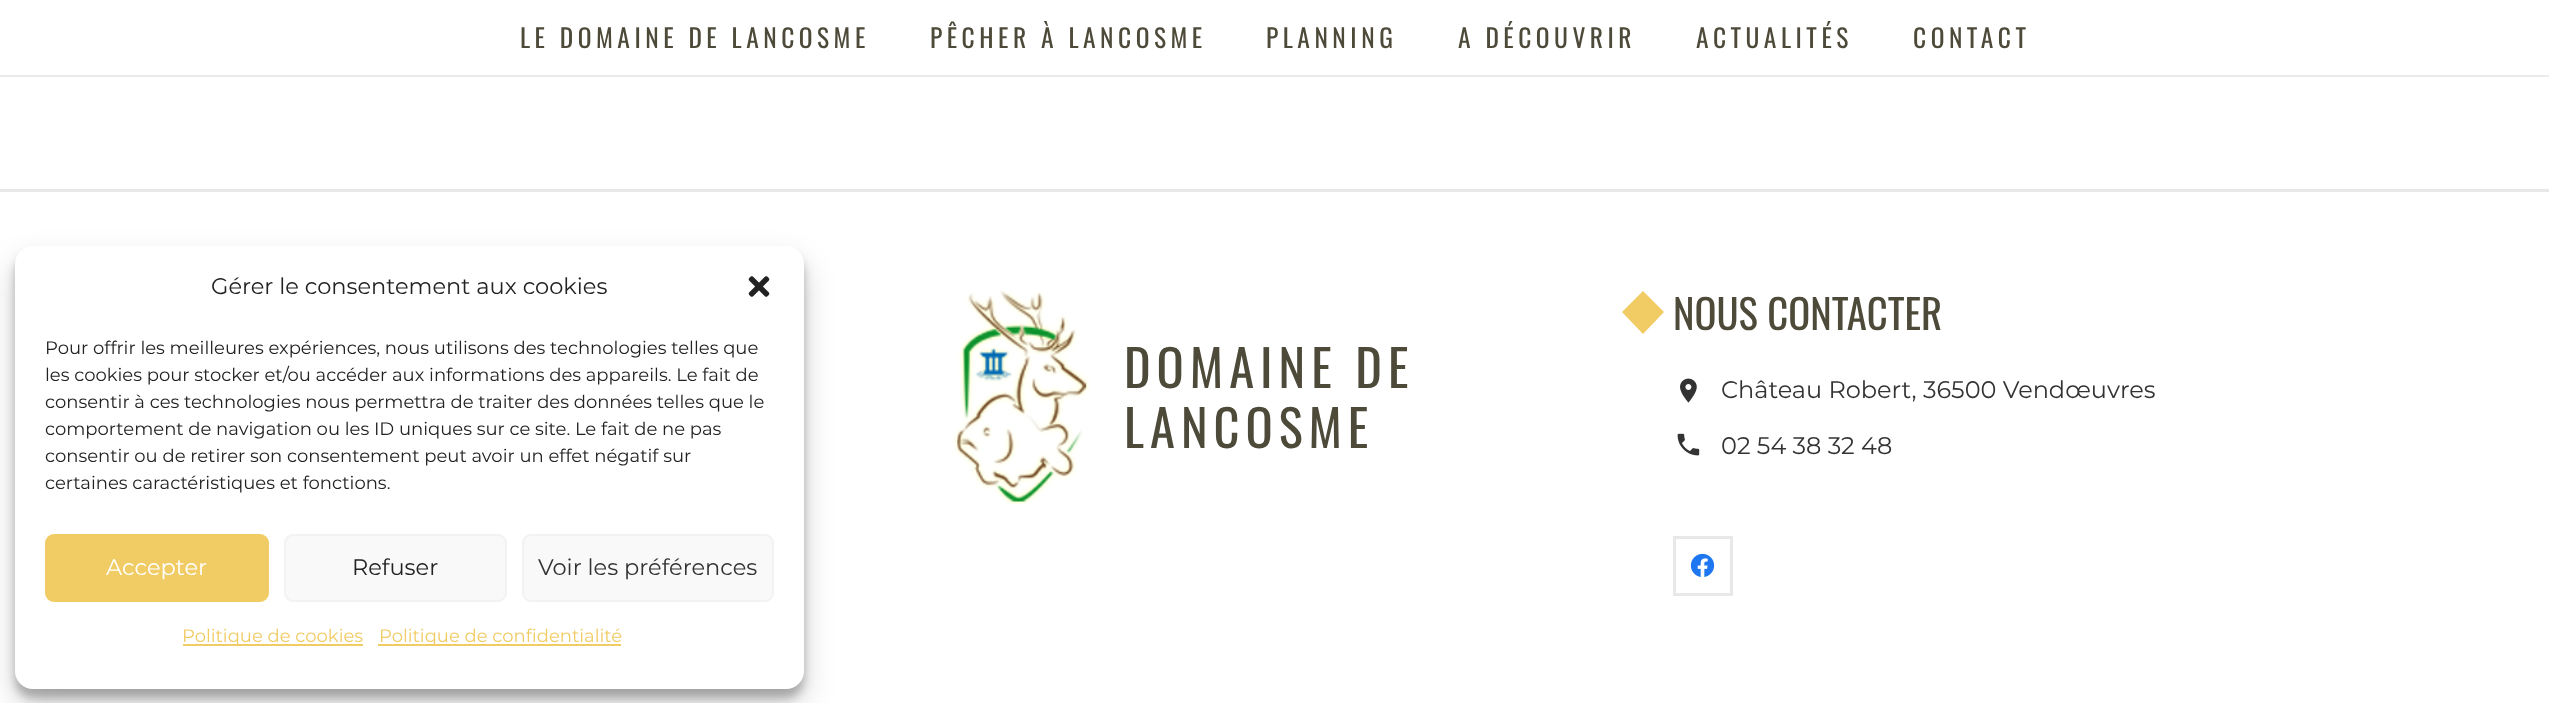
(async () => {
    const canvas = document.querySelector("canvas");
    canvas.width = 2549;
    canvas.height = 703;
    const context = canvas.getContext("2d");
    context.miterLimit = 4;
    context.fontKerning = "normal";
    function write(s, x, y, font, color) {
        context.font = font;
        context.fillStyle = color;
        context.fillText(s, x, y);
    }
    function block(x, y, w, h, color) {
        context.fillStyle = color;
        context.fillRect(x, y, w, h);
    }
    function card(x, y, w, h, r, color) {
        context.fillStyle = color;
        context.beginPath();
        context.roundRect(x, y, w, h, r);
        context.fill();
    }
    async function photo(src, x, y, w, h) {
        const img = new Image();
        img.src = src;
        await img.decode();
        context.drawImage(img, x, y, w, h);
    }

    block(0, 0, 2549, 703, "rgb(255, 255, 255)");
    block(0, 75, 2549, 2, "rgb(235, 235, 235)");
    context.letterSpacing = "4.5px";
    write("LE DOMAINE DE LANCOSME", 520, 48, "25.5px Oswald", "rgb(77, 74, 58)");
    write("PÊCHER À LANCOSME", 930, 48, "25.5px Oswald", "rgb(77, 74, 58)");
    write("PLANNING", 1266, 48, "25.5px Oswald", "rgb(77, 74, 58)");
    write("A DÉCOUVRIR", 1458, 48, "25.5px Oswald", "rgb(77, 74, 58)");
    write("ACTUALITÉS", 1696, 48, "25.5px Oswald", "rgb(77, 74, 58)");
    write("CONTACT", 1913, 48, "25.5px Oswald", "rgb(77, 74, 58)");
    context.fillStyle = "rgba(0, 0, 0, 0.23)";
    context.filter = "blur(4.5px)";
    context.beginPath();
    context.roundRect(15, 255, 789, 443, 18);
    context.fill();
    context.filter = "none";
    context.fillStyle = "rgba(0, 0, 0, 0.19)";
    context.filter = "blur(15px)";
    context.beginPath();
    context.roundRect(15, 261, 789, 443, 18);
    context.fill();
    context.filter = "none";
    card(15, 246, 789, 443, 18, "rgb(255, 255, 255)");
    context.letterSpacing = "0px";
    write("Gérer le consentement aux cookies", 211, 294, "22.5px Montserrat", "rgb(34, 34, 34)");
    await photo("media/1.png", 748, 276, 22, 21);
    write("Pour offrir les meilleures expériences, nous utilisons des technologies telles que", 45, 354, "18px Montserrat", "rgb(34, 34, 34)");
    write("les cookies pour stocker et/ou accéder aux informations des appareils. Le fait de", 45, 381, "18px Montserrat", "rgb(34, 34, 34)");
    write("consentir à ces technologies nous permettra de traiter des données telles que le", 45, 408, "18px Montserrat", "rgb(34, 34, 34)");
    write("comportement de navigation ou les ID uniques sur ce site. Le fait de ne pas", 45, 435, "18px Montserrat", "rgb(34, 34, 34)");
    write("consentir ou de retirer son consentement peut avoir un effet négatif sur", 45, 462, "18px Montserrat", "rgb(34, 34, 34)");
    write("certaines caractéristiques et fonctions.", 45, 489, "18px Montserrat", "rgb(34, 34, 34)");
    context.fillStyle = "rgb(241, 203, 100)";
    context.beginPath();
    context.roundRect(46, 535, 222, 66, 8);
    context.fill();
    context.strokeStyle = "rgb(241, 203, 100)";
    context.lineWidth = 2;
    context.stroke();
    write("Accepter", 106, 575, "22.5px Montserrat", "rgb(255, 255, 255)");
    context.fillStyle = "rgb(249, 249, 249)";
    context.beginPath();
    context.roundRect(285, 535, 221, 66, 8);
    context.fill();
    context.strokeStyle = "rgb(242, 242, 242)";
    context.stroke();
    write("Refuser", 352, 575, "22.5px Montserrat", "rgb(34, 34, 34)");
    context.fillStyle = "rgb(249, 249, 249)";
    context.beginPath();
    context.roundRect(523, 535, 250, 66, 8);
    context.fill();
    context.stroke();
    write("Voir les préférences", 538, 575, "22.5px Montserrat", "rgb(51, 51, 51)");
    block(183, 644, 180, 2, "rgb(241, 203, 100)");
    write("Politique de cookies", 182, 642, "18px Montserrat", "rgb(241, 203, 100)");
    block(378, 644, 243, 2, "rgb(241, 203, 100)");
    write("Politique de confidentialité", 379, 642, "18px Montserrat", "rgb(241, 203, 100)");
    block(0, 189, 2549, 3, "rgb(232, 232, 232)");
    await photo("media/2.png", 953, 290, 137, 214);
    context.letterSpacing = "6px";
    write("DOMAINE DE", 1124, 388, "50.5px Oswald", "rgb(77, 74, 58)");
    write("LANCOSME", 1124, 448, "50.5px Oswald", "rgb(77, 74, 58)");
    context.fillStyle = "rgb(241, 203, 100)";
    context.beginPath();
    context.moveTo(1643, 291);
    context.lineTo(1664, 312);
    context.lineTo(1643, 334);
    context.lineTo(1622, 312);
    context.closePath();
    context.fill();
    context.letterSpacing = "0px";
    write("NOUS CONTACTER", 1673, 330, "40.75px Oswald", "rgb(77, 74, 58)");
    await photo("media/3.png", 1680, 378, 17, 25);
    write("Château Robert, 36500 Vendœuvres", 1721, 398, "24px Montserrat", "rgb(51, 51, 51)");
    await photo("media/4.png", 1677, 433, 23, 23);
    write("02 54 38 32 48", 1721, 454, "24px Montserrat", "rgb(51, 51, 51)");
    context.strokeStyle = "rgb(232, 232, 232)";
    context.lineWidth = 3;
    context.strokeRect(1674.5, 537.5, 57, 57);
    await photo("media/5.png", 1690, 553, 25, 24);
})();
